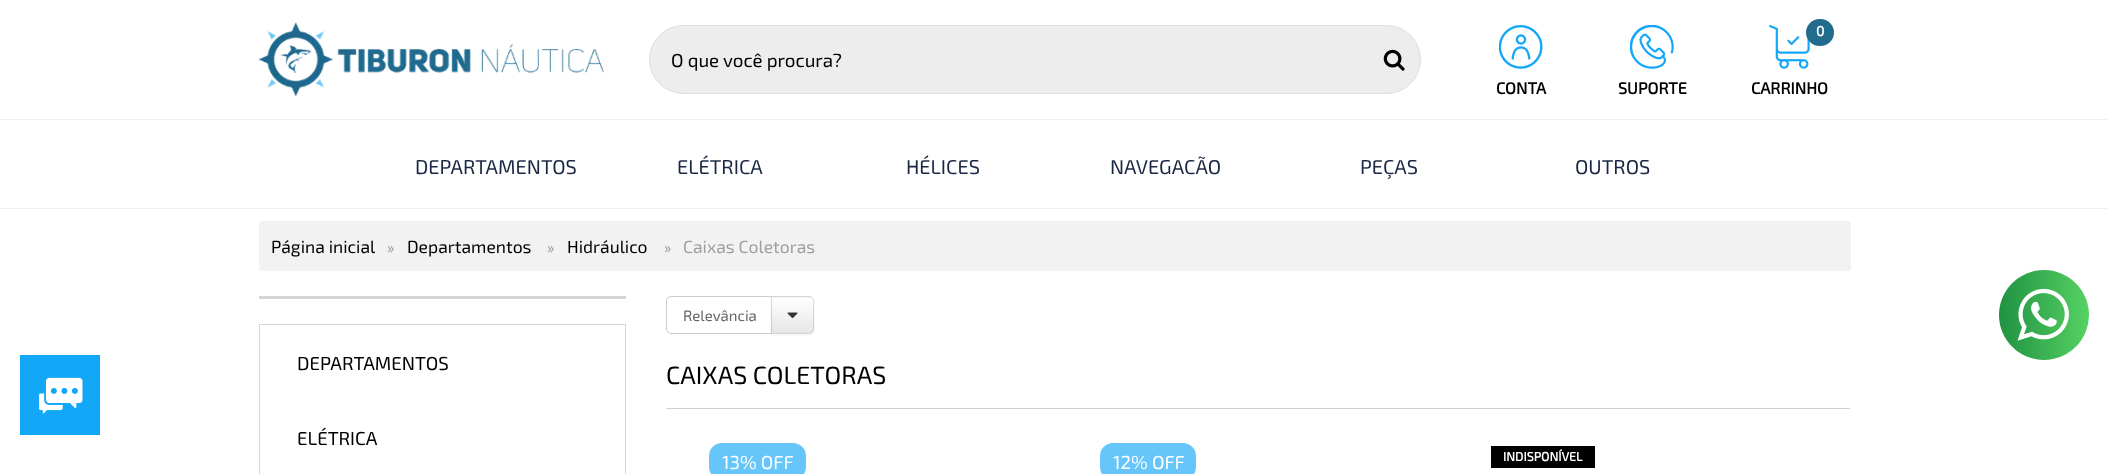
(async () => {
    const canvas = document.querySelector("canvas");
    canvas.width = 2108;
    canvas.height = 474;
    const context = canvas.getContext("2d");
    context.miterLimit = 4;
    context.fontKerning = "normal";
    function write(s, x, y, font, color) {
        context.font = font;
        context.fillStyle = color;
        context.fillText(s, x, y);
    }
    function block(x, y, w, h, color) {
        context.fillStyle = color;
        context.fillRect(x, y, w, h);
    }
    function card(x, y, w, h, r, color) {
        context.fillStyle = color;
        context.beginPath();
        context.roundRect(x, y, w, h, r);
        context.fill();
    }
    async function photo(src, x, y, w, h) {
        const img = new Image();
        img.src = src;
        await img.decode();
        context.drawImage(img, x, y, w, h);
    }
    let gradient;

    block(0, 0, 2108, 474, "rgb(255, 255, 255)");
    await photo("media/1.png", 258, 22, 346, 75);
    context.fillStyle = "rgb(237, 237, 237)";
    context.beginPath();
    context.roundRect(649.5, 25.5, 771, 68, 34);
    context.fill();
    context.strokeStyle = "rgb(221, 221, 221)";
    context.stroke();
    write("O que você procura?", 671, 67, "18.75px 'Exo 2'", "rgb(0, 0, 0)");
    await photo("media/2.png", 1383, 49, 22, 22);
    await photo("media/3.png", 1499, 25, 44, 44);
    write("CONTA", 1496, 94, "bold 16.25px 'Exo 2'", "rgb(0, 0, 0)");
    await photo("media/4.png", 1630, 25, 44, 44);
    write("SUPORTE", 1618, 94, "bold 16.25px 'Exo 2'", "rgb(0, 0, 0)");
    await photo("media/5.png", 1769, 25, 41, 44);
    card(1806, 19, 28, 27, 13.5, "rgb(33, 107, 141)");
    write("0", 1816, 36, "bold 14px 'Exo 2'", "rgb(255, 255, 255)");
    write("CARRINHO", 1751, 94, "bold 16.25px 'Exo 2'", "rgb(0, 0, 0)");
    block(0, 119, 2108, 1, "rgb(240, 240, 240)");
    block(0, 208, 2108, 1, "rgb(240, 240, 240)");
    write("DEPARTAMENTOS", 415, 174, "20px 'Exo 2'", "rgb(26, 39, 67)");
    write("ELÉTRICA", 677, 174, "20px 'Exo 2'", "rgb(26, 39, 67)");
    write("HÉLICES", 906, 174, "20px 'Exo 2'", "rgb(26, 39, 67)");
    write("NAVEGACÃO", 1110, 174, "20px 'Exo 2'", "rgb(26, 39, 67)");
    write("PEÇAS", 1360, 174, "20px 'Exo 2'", "rgb(26, 39, 67)");
    write("OUTROS", 1575, 174, "20px 'Exo 2'", "rgb(26, 39, 67)");
    card(259, 221, 1592, 50, 2.5, "rgb(242, 242, 242)");
    write("Página inicial", 271, 253, "17.5px 'Exo 2'", "rgb(0, 0, 0)");
    write("»", 387, 253, "15px 'Exo 2'", "rgb(153, 153, 153)");
    write("Departamentos", 407, 253, "17.5px 'Exo 2'", "rgb(0, 0, 0)");
    write("»", 547, 253, "15px 'Exo 2'", "rgb(153, 153, 153)");
    write("Hidráulico", 567, 253, "17.5px 'Exo 2'", "rgb(0, 0, 0)");
    write("»", 664, 253, "15px 'Exo 2'", "rgb(153, 153, 153)");
    write("Caixas Coletoras", 683, 253, "17.5px 'Exo 2'", "rgb(159, 159, 159)");
    block(259, 296, 367, 3, "rgb(212, 213, 214)");
    context.strokeStyle = "rgb(212, 213, 214)";
    context.strokeRect(259.5, 324.5, 366, 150);
    write("DEPARTAMENTOS", 297, 370, "18.75px 'Exo 2'", "rgb(0, 0, 0)");
    write("ELÉTRICA", 297, 445, "18.75px 'Exo 2'", "rgb(0, 0, 0)");
    context.beginPath();
    context.roundRect(666.5, 296.5, 106, 37, [4.5, 0, 0, 4.5]);
    context.strokeStyle = "rgb(204, 204, 204)";
    context.stroke();
    write("Relevância", 683, 321, "15px 'Exo 2'", "rgb(102, 102, 102)");
    context.fillStyle = "rgba(0, 0, 0, 0.05)";
    context.filter = "blur(1px)";
    context.beginPath();
    context.roundRect(771, 298, 43, 37, 5);
    context.fill();
    context.filter = "none";
    context.fillStyle = "rgb(245, 245, 245)";
    context.beginPath();
    context.roundRect(771, 296, 43, 38, [0, 5, 5, 0]);
    context.fill();
    context.save();
    context.beginPath();
    context.roundRect(771, 296, 43, 38, [0, 5, 5, 0]);
    context.clip();
    gradient = context.createLinearGradient(793, 298, 793, 333);
    gradient.addColorStop(0, "rgb(255, 255, 255)");
    gradient.addColorStop(1, "rgb(230, 230, 230)");
    context.fillStyle = gradient;
    context.fillRect(771, 298, 43, 35);
    context.restore();
    context.fillStyle = "rgba(255, 255, 255, 0.2)";
    context.beginPath();
    context.moveTo(773, 298);
    context.lineTo(773, 299);
    context.lineTo(803, 299);
    context.bezierCurveTo(815, 299, 812, 299, 812, 311);
    context.lineTo(812, 332);
    context.bezierCurveTo(812, 331, 813, 330, 813, 329);
    context.lineTo(813, 302);
    context.bezierCurveTo(813, 300, 811, 298, 809, 298);
    context.closePath();
    context.fill();
    context.beginPath();
    context.roundRect(771.5, 296.5, 42, 37, [0, 4.5, 4.5, 0]);
    context.strokeStyle = "rgba(0, 0, 0, 0.13)";
    context.stroke();
    await photo("media/6.png", 787, 312, 11, 7);
    write("CAIXAS COLETORAS", 666, 384, "25px 'Exo 2'", "rgb(0, 0, 0)");
    block(666, 408, 1184, 1, "rgb(208, 208, 208)");
    card(709, 443, 97, 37, 13, "rgb(102, 198, 250)");
    write("13% OFF", 722, 469, "18.75px 'Exo 2'", "rgb(255, 255, 255)");
    card(1100, 443, 96, 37, 13, "rgb(102, 198, 250)");
    write("12% OFF", 1113, 469, "18.75px 'Exo 2'", "rgb(255, 255, 255)");
    block(1491, 446, 104, 22, "rgb(0, 0, 0)");
    write("INDISPONÍVEL", 1503, 461, "bold 12.5px 'Exo 2'", "rgb(255, 255, 255)");
    gradient = context.createLinearGradient(1999, 315, 2089, 315);
    gradient.addColorStop(0, "rgb(32, 145, 66)");
    gradient.addColorStop(1, "rgb(86, 210, 99)");
    context.fillStyle = gradient;
    context.beginPath();
    context.arc(2044, 315, 45, 0, Math.PI * 2);
    context.fill();
    await photo("media/7.png", 2017, 288, 52, 53);
    block(20, 355, 80, 80, "rgb(19, 167, 248)");
    await photo("media/8.png", 39, 377, 44, 37);
})();
